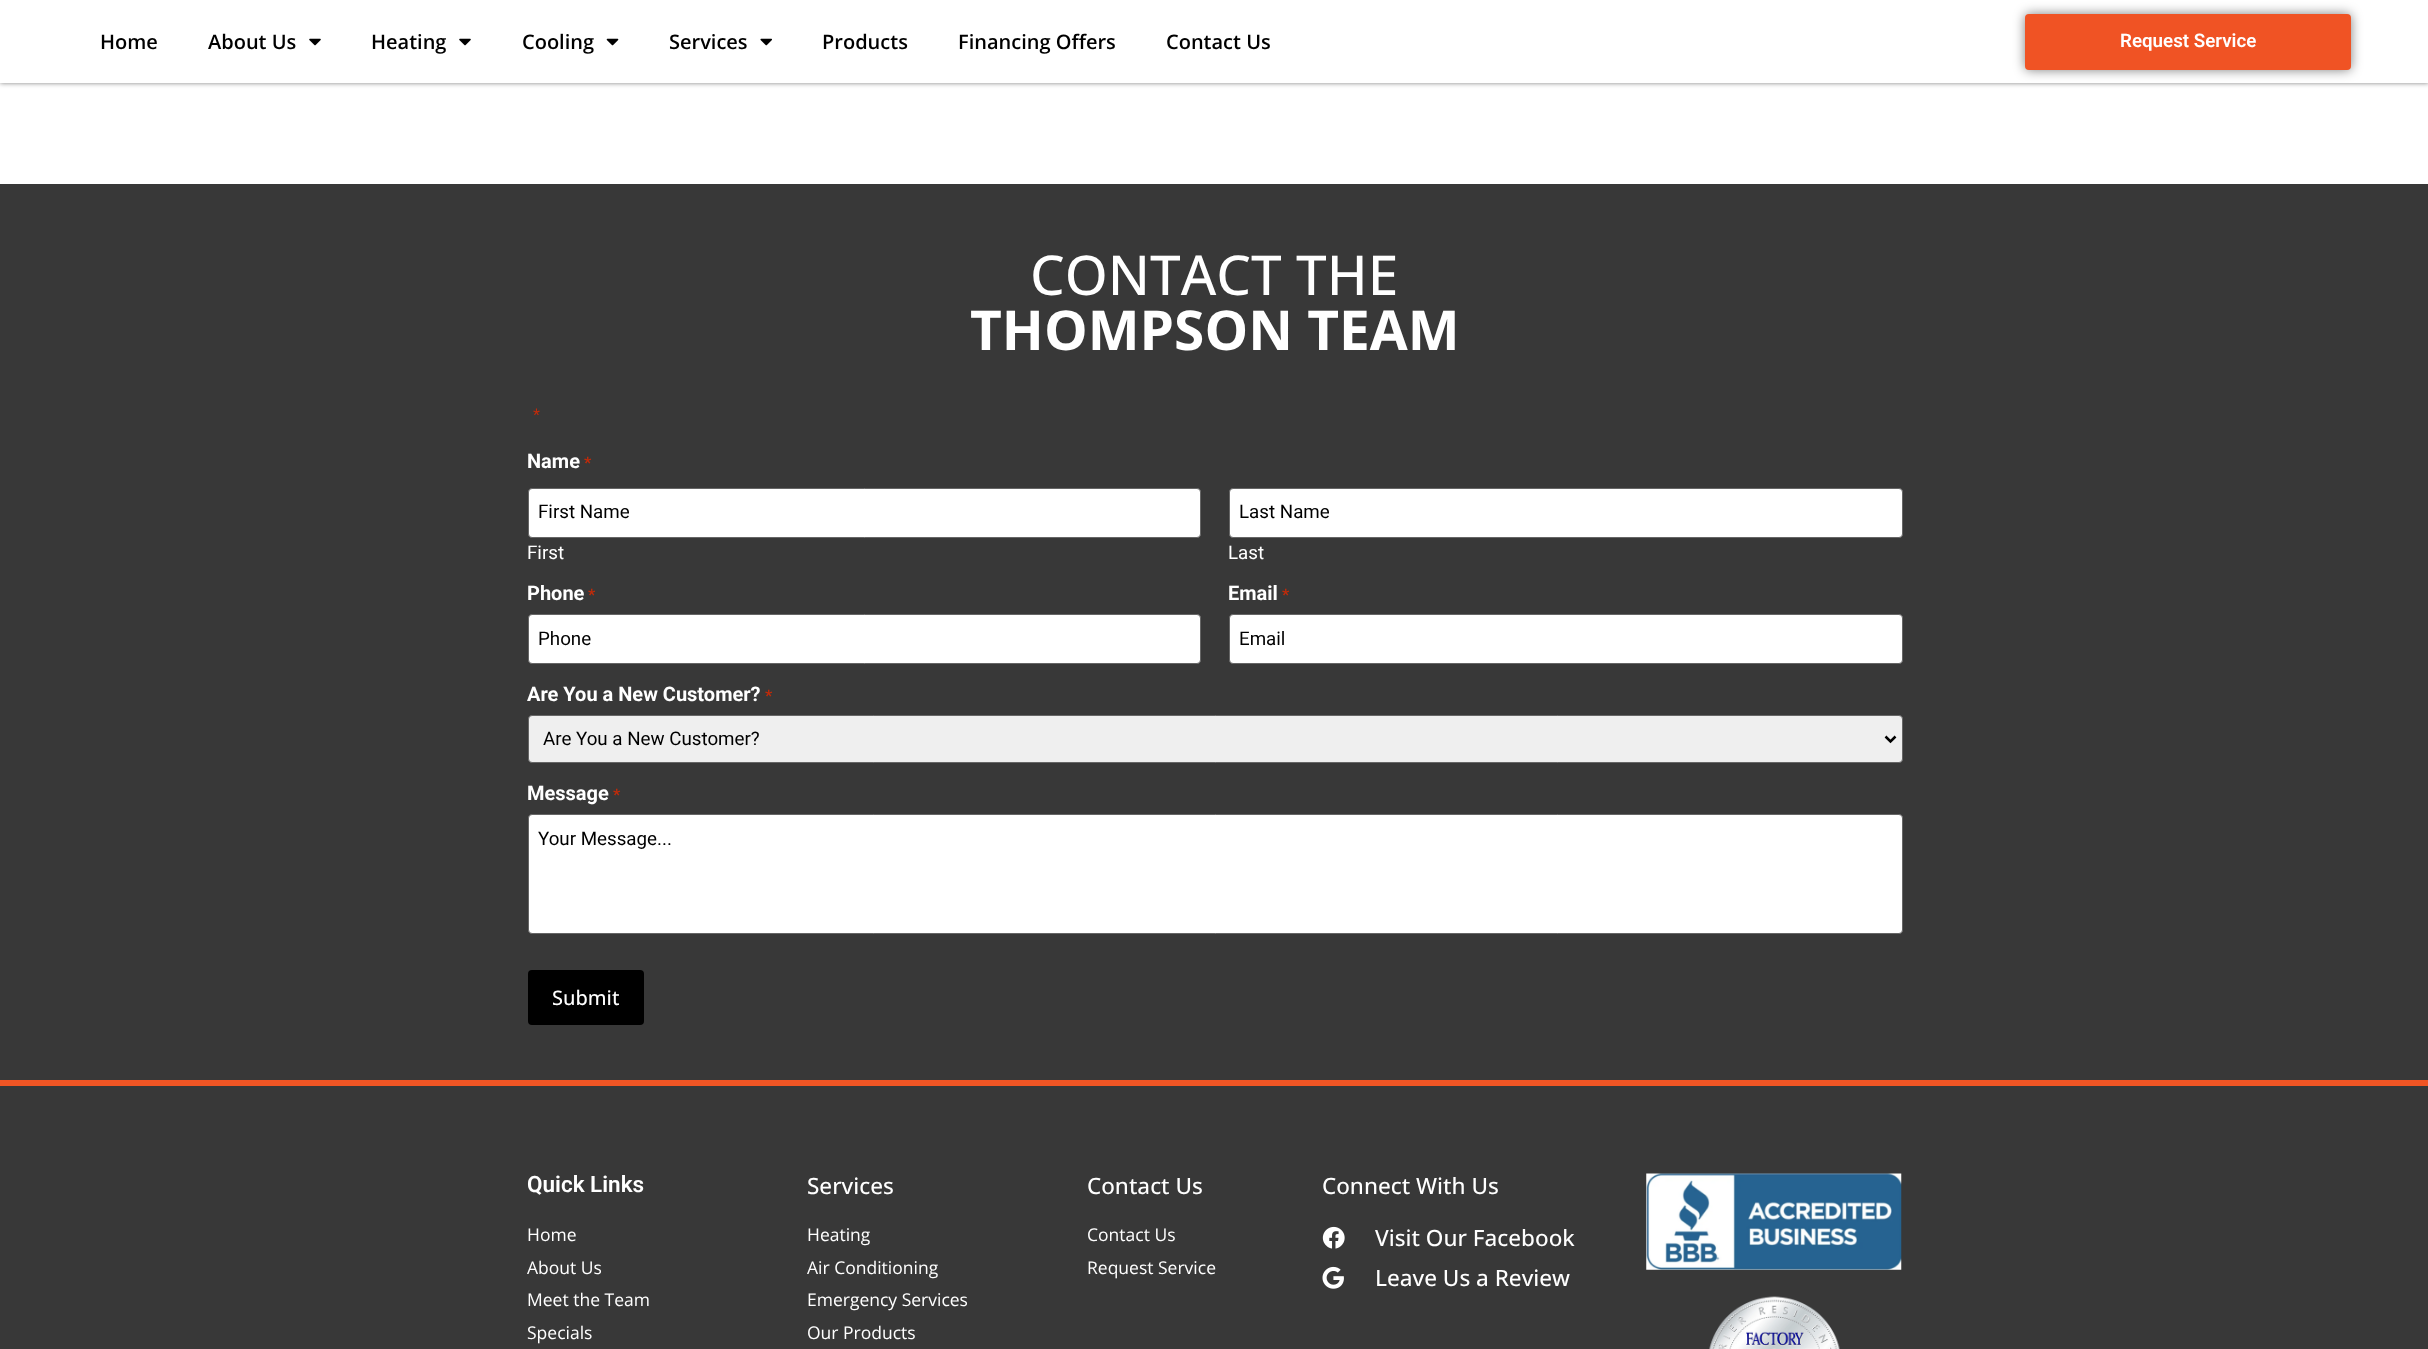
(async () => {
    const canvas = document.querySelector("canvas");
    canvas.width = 2428;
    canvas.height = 1349;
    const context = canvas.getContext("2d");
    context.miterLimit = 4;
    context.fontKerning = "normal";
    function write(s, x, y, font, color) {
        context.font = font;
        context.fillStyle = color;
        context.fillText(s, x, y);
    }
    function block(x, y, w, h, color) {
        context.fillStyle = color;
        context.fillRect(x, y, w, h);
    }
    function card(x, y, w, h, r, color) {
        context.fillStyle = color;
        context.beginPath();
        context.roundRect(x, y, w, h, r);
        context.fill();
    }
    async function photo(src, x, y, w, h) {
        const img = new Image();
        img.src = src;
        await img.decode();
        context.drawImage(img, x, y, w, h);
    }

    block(0, 0, 2428, 1349, "rgb(255, 255, 255)");
    context.fillStyle = "rgba(0, 0, 0, 0.5)";
    context.filter = "blur(2.5px)";
    context.beginPath();
    context.rect(0, 0, 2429, 83);
    context.fill();
    context.filter = "none";
    block(0, 0, 2428, 83, "rgb(255, 255, 255)");
    write("Home", 100, 49, "600 20px Open Sans", "rgb(0, 0, 0)");
    write("About Us", 208, 49, "600 20px Open Sans", "rgb(0, 0, 0)");
    await photo("media/1.png", 309, 38, 12, 8);
    write("Heating", 371, 49, "600 20px Open Sans", "rgb(0, 0, 0)");
    await photo("media/1.png", 459, 38, 12, 8);
    write("Cooling", 522, 49, "600 20px Open Sans", "rgb(0, 0, 0)");
    await photo("media/2.png", 606, 38, 13, 8);
    write("Services", 669, 49, "600 20px Open Sans", "rgb(0, 0, 0)");
    await photo("media/3.png", 760, 38, 12, 8);
    write("Products", 822, 49, "600 20px Open Sans", "rgb(0, 0, 0)");
    write("Financing Offers", 958, 49, "600 20px Open Sans", "rgb(0, 0, 0)");
    write("Contact Us", 1166, 49, "600 20px Open Sans", "rgb(0, 0, 0)");
    context.fillStyle = "rgba(0, 0, 0, 0.5)";
    context.filter = "blur(6px)";
    context.beginPath();
    context.roundRect(2025, 14, 326, 56, 4);
    context.fill();
    context.filter = "none";
    card(2025, 14, 326, 56, 4, "rgb(240, 83, 36)");
    write("Request Service", 2120, 47, "600 18.75px Roboto", "rgb(255, 255, 255)");
    block(0, 184, 2428, 896, "rgb(56, 56, 56)");
    write("CONTACT THE", 1030, 295, "500 55px Open Sans", "rgb(255, 255, 255)");
    write("THOMPSON TEAM", 970, 350, "bold 55px Open Sans", "rgb(255, 255, 255)");
    write("*", 533, 420, "16px Roboto", "rgb(192, 43, 10)");
    write("Name", 527, 468, "bold 20px Roboto", "rgb(255, 255, 255)");
    write("*", 584, 468, "bold 16px Roboto", "rgb(192, 43, 10)");
    context.fillStyle = "rgb(255, 255, 255)";
    context.beginPath();
    context.roundRect(528.5, 488.5, 672, 49, 3.5);
    context.fill();
    context.strokeStyle = "rgb(102, 102, 102)";
    context.stroke();
    write("First Name", 538, 518, "18.75px Roboto", "rgb(0, 0, 0)");
    write("First", 527, 559, "18.75px Roboto", "rgb(255, 255, 255)");
    context.beginPath();
    context.roundRect(1229.5, 488.5, 673, 49, 3.5);
    context.fill();
    context.stroke();
    write("Last Name", 1239, 518, "18.75px Roboto", "rgb(0, 0, 0)");
    write("Last", 1228, 559, "18.75px Roboto", "rgb(255, 255, 255)");
    write("Phone", 527, 600, "bold 20px Roboto", "rgb(255, 255, 255)");
    write("*", 588, 600, "bold 16px Roboto", "rgb(192, 43, 10)");
    context.fillStyle = "rgb(255, 255, 255)";
    context.beginPath();
    context.roundRect(528.5, 614.5, 672, 49, 3.5);
    context.fill();
    context.stroke();
    write("Phone", 538, 645, "18.75px Roboto", "rgb(0, 0, 0)");
    write("Email", 1228, 600, "bold 20px Roboto", "rgb(255, 255, 255)");
    write("*", 1282, 600, "bold 16px Roboto", "rgb(192, 43, 10)");
    context.fillStyle = "rgb(255, 255, 255)";
    context.beginPath();
    context.roundRect(1229.5, 614.5, 673, 49, 3.5);
    context.fill();
    context.stroke();
    write("Email", 1239, 645, "18.75px Roboto", "rgb(0, 0, 0)");
    write("Are You a New Customer?", 527, 701, "bold 20px Roboto", "rgb(255, 255, 255)");
    write("*", 765, 701, "bold 16px Roboto", "rgb(192, 43, 10)");
    context.fillStyle = "rgb(239, 239, 239)";
    context.beginPath();
    context.roundRect(528.5, 715.5, 1374, 47, 3.5);
    context.fill();
    context.stroke();
    context.beginPath();
    context.moveTo(1885.5, 736.5);
    context.lineTo(1890.5, 741.5);
    context.lineTo(1895.5, 736.5);
    context.strokeStyle = "rgb(0, 0, 0)";
    context.lineWidth = 2.5;
    context.stroke();
    write("Are You a New Customer?", 543, 745, "18.75px Roboto", "rgb(0, 0, 0)");
    write("Message", 527, 800, "bold 20px Roboto", "rgb(255, 255, 255)");
    write("*", 613, 800, "bold 16px Roboto", "rgb(192, 43, 10)");
    context.fillStyle = "rgb(255, 255, 255)";
    context.beginPath();
    context.roundRect(528.5, 814.5, 1374, 119, 3.5);
    context.fill();
    context.strokeStyle = "rgb(102, 102, 102)";
    context.lineWidth = 1;
    context.stroke();
    write("Your Message...", 538, 845, "18.75px Roboto", "rgb(0, 0, 0)");
    card(528, 970, 116, 55, 4, "rgb(0, 0, 0)");
    write("Submit", 552, 1005, "500 20px Open Sans", "rgb(255, 255, 255)");
    block(0, 1086, 2428, 263, "rgb(56, 56, 56)");
    block(0, 1080, 2428, 6, "rgb(240, 85, 36)");
    write("Quick Links", 527, 1192, "600 22.5px Roboto", "rgb(255, 255, 255)");
    write("Home", 527, 1241, "17.5px Open Sans", "rgb(255, 255, 255)");
    write("About Us", 527, 1274, "17.5px Open Sans", "rgb(255, 255, 255)");
    write("Meet the Team", 527, 1306, "17.5px Open Sans", "rgb(255, 255, 255)");
    write("Specials", 527, 1339, "17.5px Open Sans", "rgb(255, 255, 255)");
    write("Services", 807, 1194, "500 22.5px Open Sans", "rgb(255, 255, 255)");
    write("Heating", 807, 1241, "17.5px Open Sans", "rgb(255, 255, 255)");
    write("Air Conditioning", 807, 1274, "17.5px Open Sans", "rgb(255, 255, 255)");
    write("Emergency Services", 807, 1306, "17.5px Open Sans", "rgb(255, 255, 255)");
    write("Our Products", 807, 1339, "17.5px Open Sans", "rgb(255, 255, 255)");
    write("Contact Us", 1087, 1194, "500 22.5px Open Sans", "rgb(255, 255, 255)");
    write("Contact Us", 1087, 1241, "17.5px Open Sans", "rgb(255, 255, 255)");
    write("Request Service", 1087, 1274, "17.5px Open Sans", "rgb(255, 255, 255)");
    write("Connect With Us", 1322, 1194, "500 22.5px Open Sans", "rgb(255, 255, 255)");
    await photo("media/4.png", 1322, 1226, 23, 23);
    write("Visit Our Facebook", 1375, 1246, "500 22.5px Open Sans", "rgb(255, 255, 255)");
    await photo("media/5.png", 1322, 1266, 22, 23);
    write("Leave Us a Review", 1375, 1286, "500 22.5px Open Sans", "rgb(255, 255, 255)");
    await photo("media/6.png", 1646, 1173, 256, 97);
    await photo("media/7.png", 1709, 1296, 131, 53);
})();
